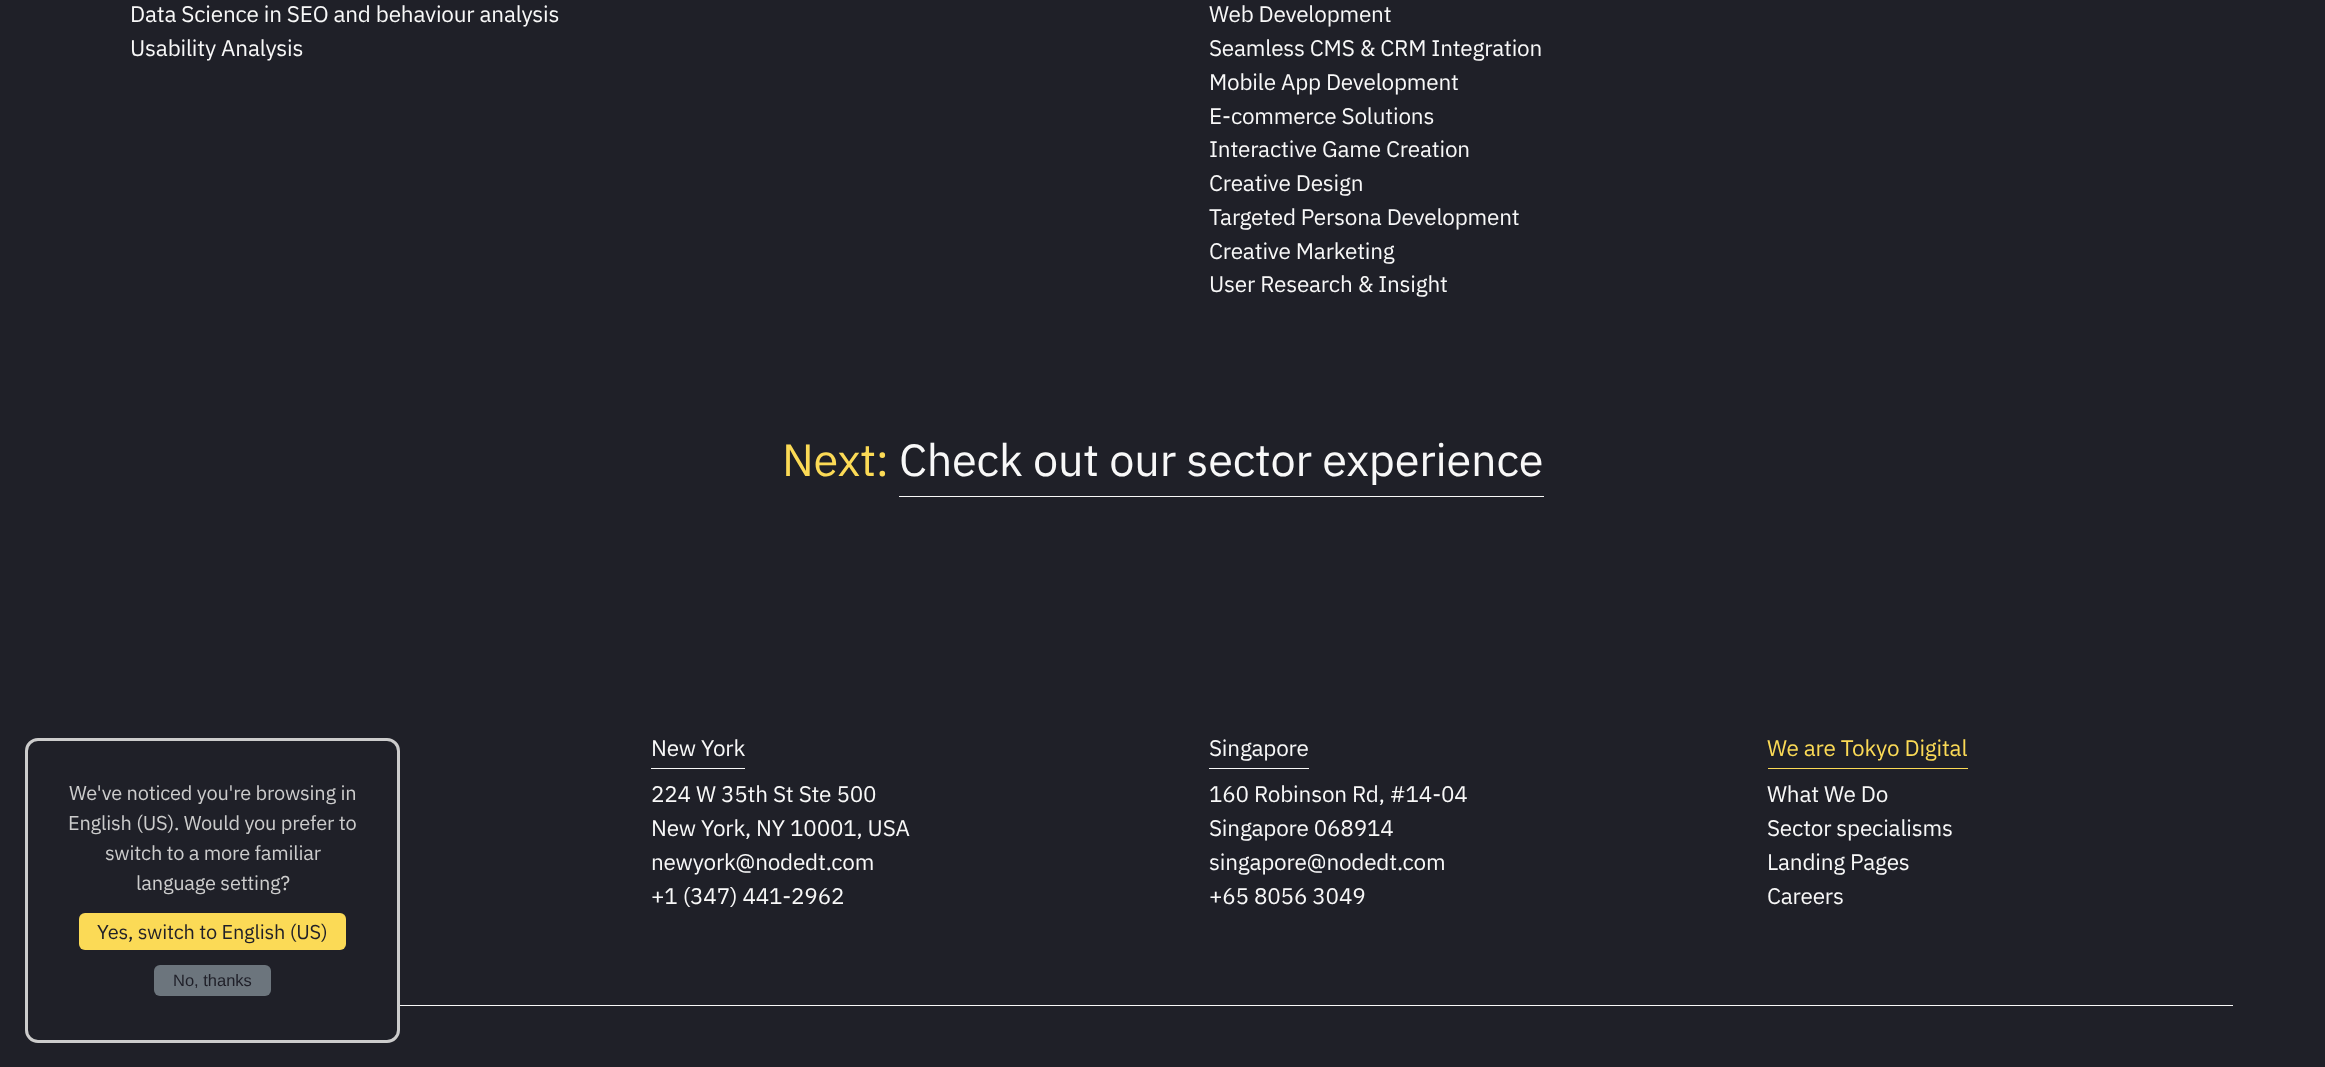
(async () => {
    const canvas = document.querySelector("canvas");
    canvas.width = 2325;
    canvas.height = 1067;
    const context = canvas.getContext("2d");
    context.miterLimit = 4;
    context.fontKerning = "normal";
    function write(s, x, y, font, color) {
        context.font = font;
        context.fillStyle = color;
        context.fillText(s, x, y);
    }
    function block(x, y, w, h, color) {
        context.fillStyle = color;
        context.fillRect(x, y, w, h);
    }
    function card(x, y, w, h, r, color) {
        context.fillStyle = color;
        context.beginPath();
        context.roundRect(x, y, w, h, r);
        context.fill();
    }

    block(0, 0, 2325, 1067, "rgb(31, 32, 40)");
    context.letterSpacing = "-0.2px";
    write("Data Science in SEO and behaviour analysis", 130, 22, "22.5px IBM Plex Sans", "rgb(248, 248, 248)");
    write("Usability Analysis", 130, 56, "22.5px IBM Plex Sans", "rgb(248, 248, 248)");
    write("Web Development", 1209, 22, "22.5px IBM Plex Sans", "rgb(248, 248, 248)");
    write("Seamless CMS & CRM Integration", 1209, 56, "22.5px IBM Plex Sans", "rgb(248, 248, 248)");
    write("Mobile App Development", 1209, 90, "22.5px IBM Plex Sans", "rgb(248, 248, 248)");
    write("E-commerce Solutions", 1209, 124, "22.5px IBM Plex Sans", "rgb(248, 248, 248)");
    write("Interactive Game Creation", 1209, 157, "22.5px IBM Plex Sans", "rgb(248, 248, 248)");
    write("Creative Design", 1209, 191, "22.5px IBM Plex Sans", "rgb(248, 248, 248)");
    write("Targeted Persona Development", 1209, 225, "22.5px IBM Plex Sans", "rgb(248, 248, 248)");
    write("Creative Marketing", 1209, 259, "22.5px IBM Plex Sans", "rgb(248, 248, 248)");
    write("User Research & Insight", 1209, 292, "22.5px IBM Plex Sans", "rgb(248, 248, 248)");
    write("Next:", 782, 476, "45px IBM Plex Sans", "rgb(251, 218, 86)");
    write("Check out our sector experience", 899, 476, "45px IBM Plex Sans", "rgb(248, 248, 248)");
    block(899, 496, 645, 1, "rgb(248, 248, 248)");
    write("New York", 651, 756, "22.5px IBM Plex Sans", "rgb(248, 248, 248)");
    block(651, 768, 94, 1, "rgb(248, 248, 248)");
    write("224 W 35th St Ste 500", 651, 802, "22.5px IBM Plex Sans", "rgb(248, 248, 248)");
    write("New York, NY 10001, USA", 651, 836, "22.5px IBM Plex Sans", "rgb(248, 248, 248)");
    write("newyork@nodedt.com", 651, 870, "22.5px IBM Plex Sans", "rgb(248, 248, 248)");
    write("+1 (347) 441-2962", 651, 904, "22.5px IBM Plex Sans", "rgb(248, 248, 248)");
    write("Singapore", 1209, 756, "22.5px IBM Plex Sans", "rgb(248, 248, 248)");
    block(1209, 768, 100, 1, "rgb(248, 248, 248)");
    write("160 Robinson Rd, #14-04", 1209, 802, "22.5px IBM Plex Sans", "rgb(248, 248, 248)");
    write("Singapore 068914", 1209, 836, "22.5px IBM Plex Sans", "rgb(248, 248, 248)");
    write("singapore@nodedt.com", 1209, 870, "22.5px IBM Plex Sans", "rgb(248, 248, 248)");
    write("+65 8056 3049", 1209, 904, "22.5px IBM Plex Sans", "rgb(248, 248, 248)");
    write("We are Tokyo Digital", 1767, 756, "22.5px IBM Plex Sans", "rgb(251, 218, 86)");
    block(1768, 768, 200, 1, "rgb(251, 218, 86)");
    write("What We Do", 1767, 802, "22.5px IBM Plex Sans", "rgb(248, 248, 248)");
    write("Sector specialisms", 1767, 836, "22.5px IBM Plex Sans", "rgb(248, 248, 248)");
    write("Landing Pages", 1767, 870, "22.5px IBM Plex Sans", "rgb(248, 248, 248)");
    write("Careers", 1767, 904, "22.5px IBM Plex Sans", "rgb(248, 248, 248)");
    block(400, 1005, 1833, 1, "rgb(248, 248, 248)");
    context.beginPath();
    context.roundRect(26.5, 739.5, 372, 302, 11.5);
    context.strokeStyle = "rgb(204, 204, 204)";
    context.lineWidth = 3;
    context.stroke();
    write("We've noticed you're browsing in", 69, 800, "20px IBM Plex Sans", "rgb(204, 204, 204)");
    write("English (US). Would you prefer to", 68, 830, "20px IBM Plex Sans", "rgb(204, 204, 204)");
    write("switch to a more familiar", 105, 860, "20px IBM Plex Sans", "rgb(204, 204, 204)");
    write("language setting?", 136, 890, "20px IBM Plex Sans", "rgb(204, 204, 204)");
    card(79, 913, 267, 37, 6, "rgb(251, 218, 86)");
    write("Yes, switch to English (US)", 97, 939, "20px IBM Plex Sans", "rgb(31, 31, 40)");
    card(154, 965, 117, 31, 6, "rgb(108, 117, 125)");
    context.letterSpacing = "0px";
    write("No, thanks", 173, 986, "16.5px Liberation Sans", "rgb(31, 31, 40)");
})();
